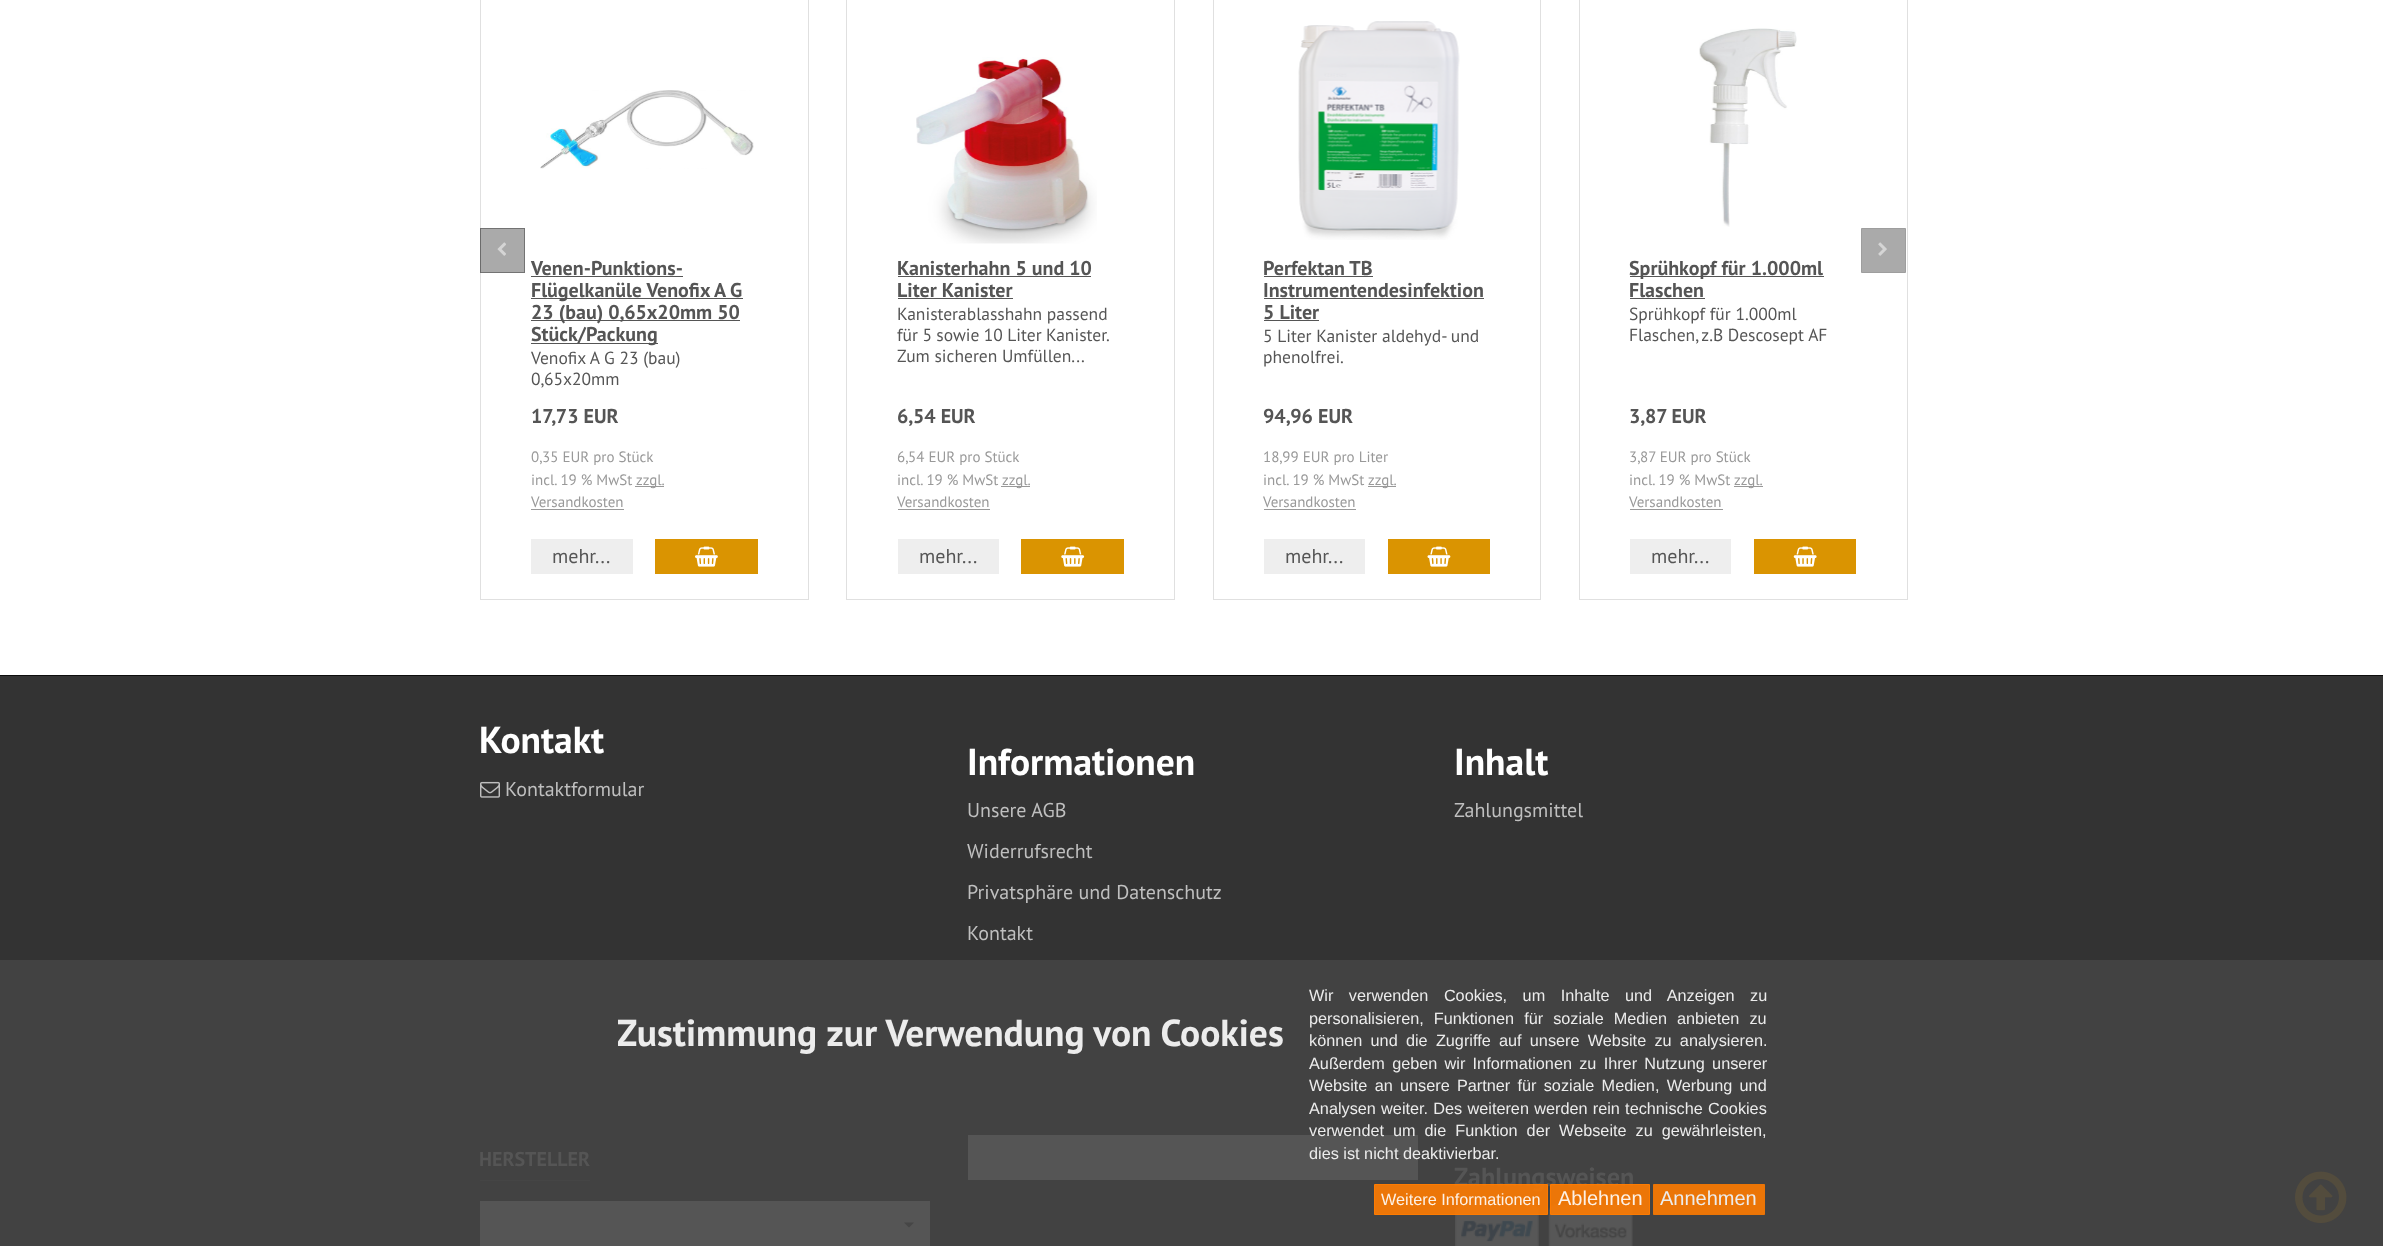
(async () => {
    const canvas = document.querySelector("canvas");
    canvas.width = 2383;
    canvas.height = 1246;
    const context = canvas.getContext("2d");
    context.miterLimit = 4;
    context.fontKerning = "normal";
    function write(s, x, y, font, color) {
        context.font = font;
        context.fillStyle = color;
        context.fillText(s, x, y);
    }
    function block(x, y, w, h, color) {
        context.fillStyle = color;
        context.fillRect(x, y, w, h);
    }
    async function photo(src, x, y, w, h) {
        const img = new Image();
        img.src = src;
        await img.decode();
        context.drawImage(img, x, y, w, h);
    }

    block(0, 0, 2383, 1246, "rgb(255, 255, 255)");
    context.strokeStyle = "rgb(224, 224, 224)";
    context.strokeRect(480.5, -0.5, 328, 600);
    block(480, 228, 45, 45, "rgba(85, 85, 85, 0.5)");
    context.strokeStyle = "rgba(60, 60, 60, 0.5)";
    context.strokeRect(480.5, 228.5, 44, 44);
    await photo("media/1.png", 497, 242, 9, 14);
    context.strokeStyle = "rgb(224, 224, 224)";
    context.strokeRect(1579.5, -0.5, 328, 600);
    context.fillStyle = "rgb(170, 170, 170)";
    context.beginPath();
    context.rect(1861.5, 228.5, 44, 44);
    context.fill();
    context.strokeStyle = "rgb(158, 158, 158)";
    context.stroke();
    await photo("media/2.png", 1878, 242, 9, 14);
    await photo("media/3.png", 540, 90, 214, 79);
    write("Venen-Punktions-", 531, 275, "bold 20px PT Sans", "rgb(85, 85, 85)");
    block(531, 276, 152, 1, "rgb(85, 85, 85)");
    block(531, 298, 212, 1, "rgb(85, 85, 85)");
    write("Flügelkanüle Venofix A G", 531, 297, "bold 20px PT Sans", "rgb(85, 85, 85)");
    block(531, 320, 209, 1, "rgb(85, 85, 85)");
    write("23 (bau) 0,65x20mm 50", 531, 319, "bold 20px PT Sans", "rgb(85, 85, 85)");
    block(531, 343, 127, 1, "rgb(85, 85, 85)");
    write("Stück/Packung", 531, 341, "bold 20px PT Sans", "rgb(85, 85, 85)");
    write("Venofix A G 23 (bau)", 531, 364, "17.5px PT Sans", "rgb(85, 85, 85)");
    write("0,65x20mm", 531, 385, "17.5px PT Sans", "rgb(85, 85, 85)");
    write("17,73 EUR", 531, 423, "bold 20px PT Sans", "rgb(85, 85, 85)");
    write("0,35 EUR pro Stück", 531, 462, "15px PT Sans", "rgb(153, 153, 153)");
    write("incl. 19 % MwSt", 531, 485, "15px PT Sans", "rgb(153, 153, 153)");
    block(635, 486, 29, 1, "rgb(153, 153, 153)");
    write("zzgl.", 636, 485, "15px PT Sans", "rgb(153, 153, 153)");
    write("Versandkosten", 531, 507, "15px PT Sans", "rgb(153, 153, 153)");
    block(531, 509, 93, 1, "rgb(153, 153, 153)");
    block(531, 539, 102, 35, "rgb(238, 238, 238)");
    write("mehr...", 552, 563, "20px PT Sans", "rgb(85, 85, 85)");
    block(655, 539, 103, 35, "rgb(218, 148, 1)");
    await photo("media/4.png", 695, 546, 23, 21);
    context.strokeStyle = "rgb(224, 224, 224)";
    context.strokeRect(846.5, -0.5, 328, 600);
    await photo("media/5.png", 916, 57, 181, 187);
    write("Kanisterhahn 5 und 10", 897, 275, "bold 20px PT Sans", "rgb(85, 85, 85)");
    block(898, 276, 193, 1, "rgb(85, 85, 85)");
    write("Liter Kanister", 897, 297, "bold 20px PT Sans", "rgb(85, 85, 85)");
    block(898, 298, 115, 1, "rgb(85, 85, 85)");
    write("Kanisterablasshahn passend", 897, 320, "17.5px PT Sans", "rgb(85, 85, 85)");
    context.wordSpacing = "-0.25px";
    write("für 5 sowie 10 Liter Kanister.", 897, 341, "17.5px PT Sans", "rgb(85, 85, 85)");
    context.wordSpacing = "0px";
    write("Zum sicheren Umfüllen...", 897, 362, "17.5px PT Sans", "rgb(85, 85, 85)");
    write("6,54 EUR", 897, 423, "bold 20px PT Sans", "rgb(85, 85, 85)");
    write("6,54 EUR pro Stück", 897, 462, "15px PT Sans", "rgb(153, 153, 153)");
    write("incl. 19 % MwSt", 897, 485, "15px PT Sans", "rgb(153, 153, 153)");
    block(1001, 486, 29, 1, "rgb(153, 153, 153)");
    write("zzgl.", 1002, 485, "15px PT Sans", "rgb(153, 153, 153)");
    write("Versandkosten", 897, 507, "15px PT Sans", "rgb(153, 153, 153)");
    block(898, 509, 92, 1, "rgb(153, 153, 153)");
    block(898, 539, 101, 35, "rgb(238, 238, 238)");
    write("mehr...", 919, 563, "20px PT Sans", "rgb(85, 85, 85)");
    block(1021, 539, 103, 35, "rgb(218, 148, 1)");
    await photo("media/6.png", 1061, 546, 24, 21);
    context.strokeRect(1213.5, -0.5, 327, 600);
    await photo("media/7.png", 1298, 21, 162, 219);
    write("Perfektan TB", 1263, 275, "bold 20px PT Sans", "rgb(85, 85, 85)");
    block(1264, 276, 109, 1, "rgb(85, 85, 85)");
    write("Instrumentendesinfektion", 1263, 297, "bold 20px PT Sans", "rgb(85, 85, 85)");
    block(1264, 298, 220, 1, "rgb(85, 85, 85)");
    write("5 Liter", 1263, 319, "bold 20px PT Sans", "rgb(85, 85, 85)");
    block(1264, 320, 55, 1, "rgb(85, 85, 85)");
    write("5 Liter Kanister aldehyd- und", 1263, 342, "17.5px PT Sans", "rgb(85, 85, 85)");
    write("phenolfrei.", 1263, 363, "17.5px PT Sans", "rgb(85, 85, 85)");
    write("94,96 EUR", 1263, 423, "bold 20px PT Sans", "rgb(85, 85, 85)");
    write("18,99 EUR pro Liter", 1263, 462, "15px PT Sans", "rgb(153, 153, 153)");
    write("incl. 19 % MwSt", 1263, 485, "15px PT Sans", "rgb(153, 153, 153)");
    block(1368, 486, 28, 1, "rgb(153, 153, 153)");
    write("zzgl.", 1368, 485, "15px PT Sans", "rgb(153, 153, 153)");
    write("Versandkosten", 1263, 507, "15px PT Sans", "rgb(153, 153, 153)");
    block(1264, 509, 92, 1, "rgb(153, 153, 153)");
    block(1264, 539, 101, 35, "rgb(238, 238, 238)");
    write("mehr...", 1285, 563, "20px PT Sans", "rgb(85, 85, 85)");
    block(1388, 539, 102, 35, "rgb(218, 148, 1)");
    await photo("media/8.png", 1427, 546, 24, 21);
    await photo("media/9.png", 1699, 28, 98, 199);
    block(1630, 276, 194, 1, "rgb(85, 85, 85)");
    write("Sprühkopf für 1.000ml", 1629, 275, "bold 20px PT Sans", "rgb(85, 85, 85)");
    write("Flaschen", 1629, 297, "bold 20px PT Sans", "rgb(85, 85, 85)");
    block(1630, 298, 75, 1, "rgb(85, 85, 85)");
    write("Sprühkopf für 1.000ml", 1629, 320, "17.5px PT Sans", "rgb(85, 85, 85)");
    write("Flaschen, z.B Descosept AF", 1629, 341, "17.5px PT Sans", "rgb(85, 85, 85)");
    write("3,87 EUR", 1629, 423, "bold 20px PT Sans", "rgb(85, 85, 85)");
    write("3,87 EUR pro Stück", 1629, 462, "15px PT Sans", "rgb(153, 153, 153)");
    write("incl. 19 % MwSt", 1629, 485, "15px PT Sans", "rgb(153, 153, 153)");
    block(1734, 486, 29, 1, "rgb(153, 153, 153)");
    write("zzgl.", 1734, 485, "15px PT Sans", "rgb(153, 153, 153)");
    write("Versandkosten", 1629, 507, "15px PT Sans", "rgb(153, 153, 153)");
    block(1630, 509, 93, 1, "rgb(153, 153, 153)");
    block(1630, 539, 101, 35, "rgb(238, 238, 238)");
    write("mehr...", 1651, 563, "20px PT Sans", "rgb(85, 85, 85)");
    block(1754, 539, 102, 35, "rgb(218, 148, 1)");
    await photo("media/10.png", 1793, 546, 24, 21);
    block(0, 676, 2383, 284, "rgb(51, 51, 51)");
    block(0, 960, 2383, 286, "rgb(66, 66, 66)");
    block(0, 675, 2383, 1, "rgb(13, 13, 13)");
    write("Kontakt", 479, 753, "bold 37.5px PT Sans", "rgb(255, 255, 255)");
    await photo("media/11.png", 480, 781, 20, 17);
    write("Kontaktformular", 505, 796, "20px PT Sans", "rgb(191, 191, 191)");
    write("Informationen", 967, 775, "bold 37.5px PT Sans", "rgb(255, 255, 255)");
    write("Unsere AGB", 967, 817, "20px PT Sans", "rgb(191, 191, 191)");
    write("Widerrufsrecht", 967, 858, "20px PT Sans", "rgb(191, 191, 191)");
    write("Privatsphäre und Datenschutz", 967, 899, "20px PT Sans", "rgb(191, 191, 191)");
    write("Kontakt", 967, 940, "20px PT Sans", "rgb(191, 191, 191)");
    write("Inhalt", 1454, 775, "bold 37.5px PT Sans", "rgb(255, 255, 255)");
    write("Zahlungsmittel", 1454, 817, "20px PT Sans", "rgb(191, 191, 191)");
    block(480, 1180, 110, 1, "rgb(69, 69, 69)");
    write("HERSTELLER", 479, 1166, "bold 20px PT Sans", "rgb(85, 85, 85)");
    block(480, 1201, 450, 45, "rgb(85, 85, 85)");
    context.fillStyle = "rgb(70, 70, 70)";
    context.beginPath();
    context.moveTo(904, 1222.5);
    context.lineTo(914, 1222.5);
    context.lineTo(909, 1227.5);
    context.closePath();
    context.fill();
    block(968, 1135, 450, 45, "rgb(85, 85, 85)");
    context.fillStyle = "rgb(70, 70, 70)";
    context.beginPath();
    context.moveTo(1391, 1155);
    context.lineTo(1401, 1155);
    context.lineTo(1396, 1160);
    context.closePath();
    context.fill();
    write("Zahlungsweisen", 1454, 1186, "bold 26.25px PT Sans", "rgb(85, 85, 85)");
    await photo("media/12.png", 1455, 1204, 84, 42);
    await photo("media/13.png", 1548, 1204, 85, 42);
    await photo("media/14.png", 2295, 1171, 52, 52);
    write("Zustimmung zur Verwendung von Cookies", 617, 1046, "bold 37.5px PT Sans", "rgb(236, 236, 236)");
    context.wordSpacing = "11px";
    write("Wir verwenden Cookies, um Inhalte und Anzeigen zu", 1309, 1001, "16.25px Liberation Sans", "rgb(236, 236, 236)");
    context.wordSpacing = "5.5px";
    write("personalisieren, Funktionen für soziale Medien anbieten zu", 1309, 1024, "16.25px Liberation Sans", "rgb(236, 236, 236)");
    context.wordSpacing = "3.75px";
    write("können und die Zugriffe auf unsere Website zu analysieren.", 1309, 1046, "16.25px Liberation Sans", "rgb(236, 236, 236)");
    context.wordSpacing = "2.75px";
    write("Außerdem geben wir Informationen zu Ihrer Nutzung unserer", 1309, 1069, "16.25px Liberation Sans", "rgb(236, 236, 236)");
    write("Website an unsere Partner für soziale Medien, Werbung und", 1309, 1091, "16.25px Liberation Sans", "rgb(236, 236, 236)");
    context.wordSpacing = "0.75px";
    write("Analysen weiter. Des weiteren werden rein technische Cookies", 1309, 1114, "16.25px Liberation Sans", "rgb(236, 236, 236)");
    context.wordSpacing = "4.5px";
    write("verwendet um die Funktion der Webseite zu gewährleisten,", 1309, 1136, "16.25px Liberation Sans", "rgb(236, 236, 236)");
    context.wordSpacing = "0px";
    write("dies ist nicht deaktivierbar.", 1309, 1159, "16.25px Liberation Sans", "rgb(236, 236, 236)");
    context.fillStyle = "rgba(255, 124, 2, 0.9)";
    context.beginPath();
    context.rect(1374.5, 1184.5, 173, 30);
    context.fill();
    context.strokeStyle = "rgb(253, 123, 1)";
    context.stroke();
    write("Weitere Informationen", 1381, 1205, "16.25px Liberation Sans", "rgb(253, 241, 230)");
    context.fillStyle = "rgba(255, 124, 2, 0.9)";
    context.beginPath();
    context.rect(1550.5, 1184.5, 99, 30);
    context.fill();
    context.stroke();
    write("Ablehnen", 1558, 1205, "20px Liberation Sans", "rgb(253, 241, 230)");
    context.fillStyle = "rgb(235, 117, 7)";
    context.beginPath();
    context.rect(1653.5, 1184.5, 111, 30);
    context.fill();
    context.strokeStyle = "rgb(235, 116, 5)";
    context.stroke();
    write("Annehmen", 1660, 1205, "20px Liberation Sans", "rgb(236, 236, 236)");
})();
